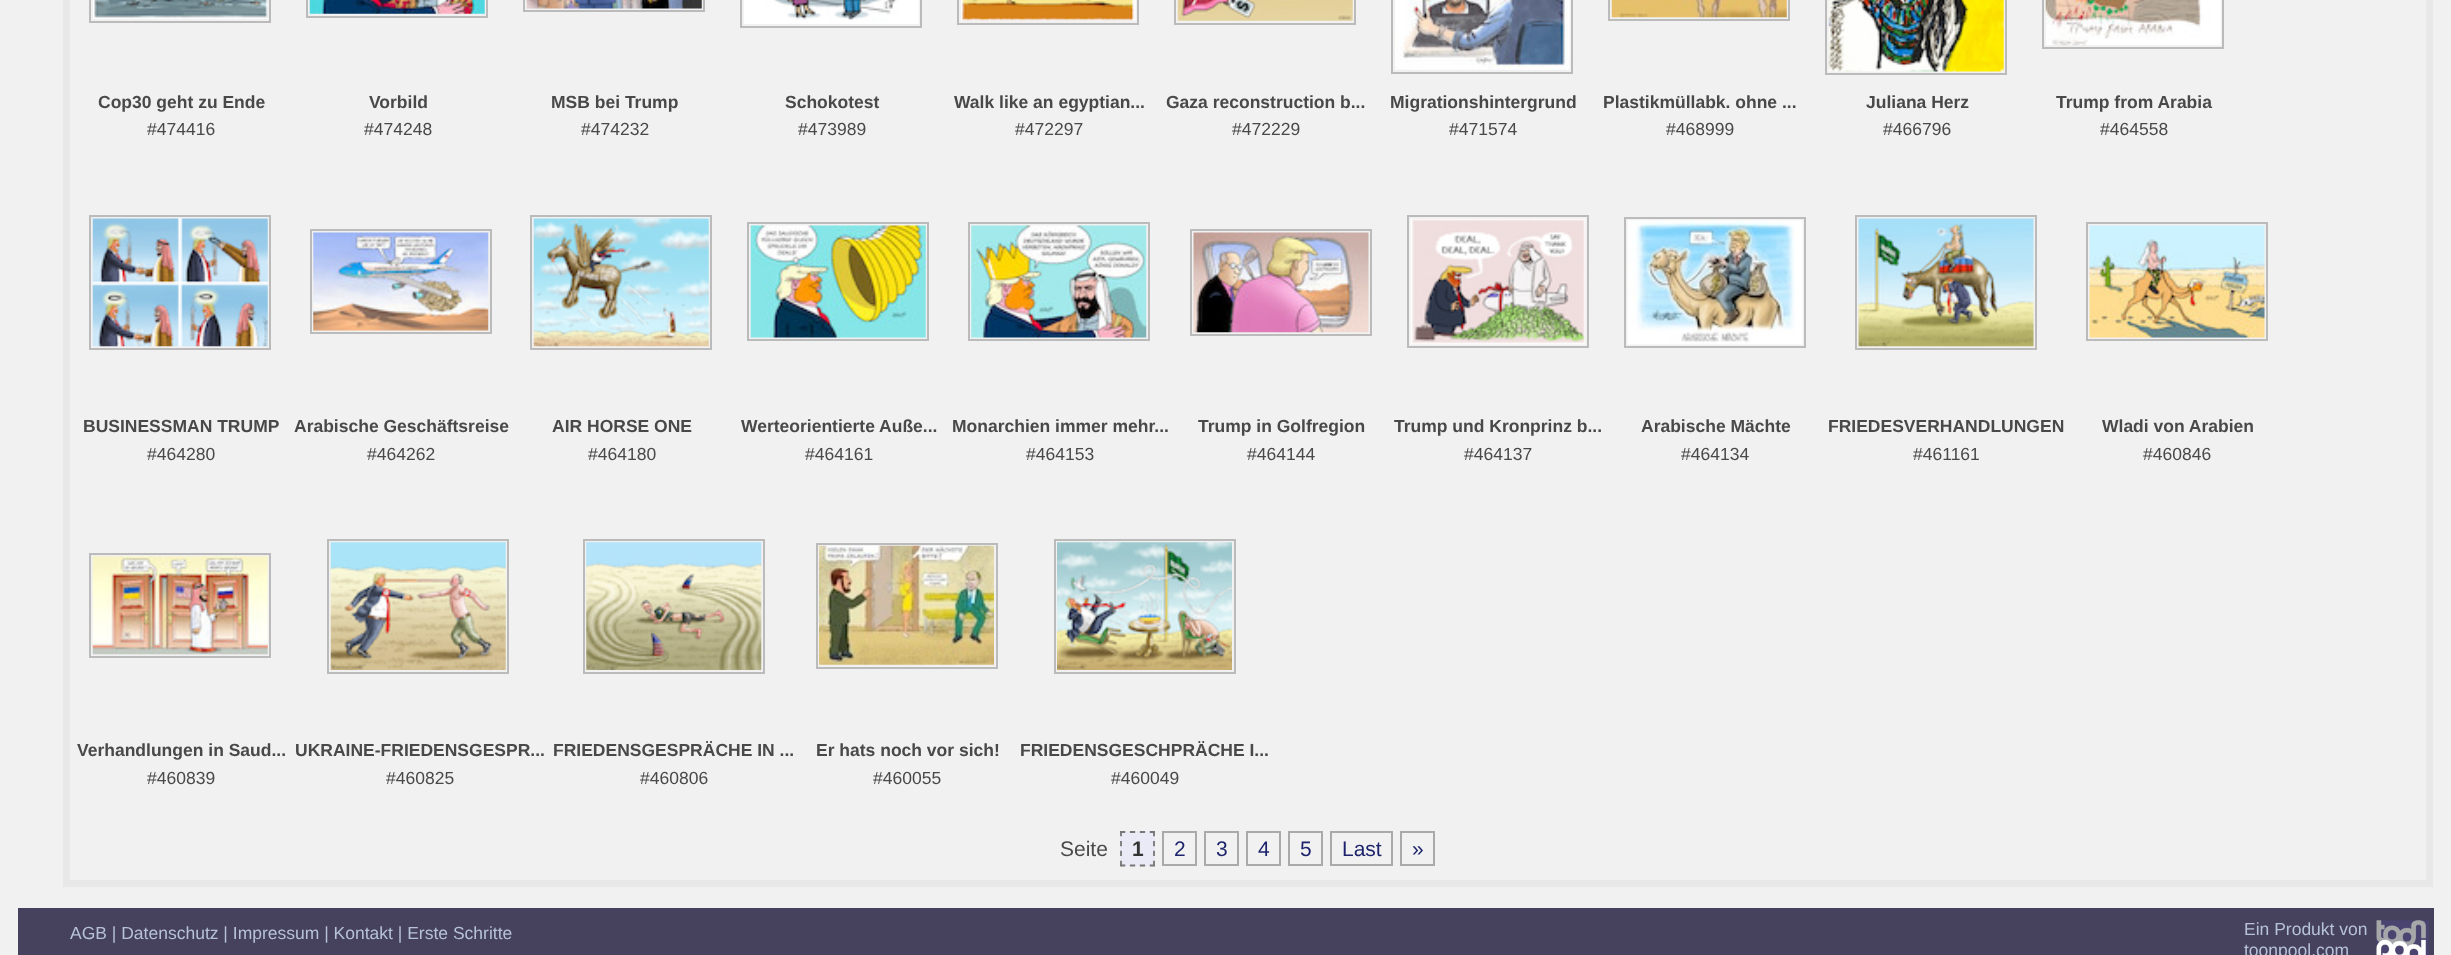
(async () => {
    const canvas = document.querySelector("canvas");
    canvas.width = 2451;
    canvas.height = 955;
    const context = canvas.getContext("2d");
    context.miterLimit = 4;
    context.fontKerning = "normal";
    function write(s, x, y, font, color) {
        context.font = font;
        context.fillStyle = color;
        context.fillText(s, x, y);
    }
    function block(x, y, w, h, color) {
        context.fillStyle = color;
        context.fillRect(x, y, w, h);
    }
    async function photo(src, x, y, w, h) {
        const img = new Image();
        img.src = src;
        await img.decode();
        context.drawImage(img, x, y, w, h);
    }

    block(0, 0, 2451, 955, "rgb(241, 241, 241)");
    context.strokeStyle = "rgb(232, 232, 232)";
    context.lineWidth = 7;
    context.strokeRect(66.5, -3.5, 2363, 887);
    context.strokeStyle = "rgb(187, 187, 187)";
    context.lineWidth = 2;
    context.strokeRect(90, -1, 180, 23);
    await photo("media/1.png", 93, 0, 175, 19);
    write("Cop30 geht zu Ende", 98, 108, "bold 17.5px Liberation Sans", "rgb(73, 73, 73)");
    write("#474416", 147, 135, "17.5px Liberation Sans", "rgb(73, 73, 73)");
    context.strokeRect(307, -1, 180, 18);
    await photo("media/2.png", 309, 0, 176, 14);
    write("Vorbild", 369, 108, "bold 17.5px Liberation Sans", "rgb(73, 73, 73)");
    write("#474248", 364, 135, "17.5px Liberation Sans", "rgb(73, 73, 73)");
    context.strokeRect(524, -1, 180, 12);
    await photo("media/3.png", 526, 0, 176, 9);
    write("MSB bei Trump", 551, 108, "bold 17.5px Liberation Sans", "rgb(73, 73, 73)");
    write("#474232", 581, 135, "17.5px Liberation Sans", "rgb(73, 73, 73)");
    context.strokeRect(741, -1, 180, 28);
    await photo("media/4.png", 744, 0, 175, 24);
    write("Schokotest", 785, 108, "bold 17.5px Liberation Sans", "rgb(73, 73, 73)");
    write("#473989", 798, 135, "17.5px Liberation Sans", "rgb(73, 73, 73)");
    context.strokeRect(958, -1, 180, 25);
    await photo("media/5.png", 961, 0, 175, 21);
    write("Walk like an egyptian...", 954, 108, "bold 17.5px Liberation Sans", "rgb(73, 73, 73)");
    write("#472297", 1015, 135, "17.5px Liberation Sans", "rgb(73, 73, 73)");
    context.strokeRect(1175, -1, 180, 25);
    await photo("media/6.png", 1177, 0, 176, 21);
    write("Gaza reconstruction b...", 1166, 108, "bold 17.5px Liberation Sans", "rgb(73, 73, 73)");
    write("#472229", 1232, 135, "17.5px Liberation Sans", "rgb(73, 73, 73)");
    context.strokeRect(1392, -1, 180, 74);
    await photo("media/7.png", 1395, 0, 175, 70);
    write("Migrationshintergrund", 1390, 108, "bold 17.5px Liberation Sans", "rgb(73, 73, 73)");
    write("#471574", 1449, 135, "17.5px Liberation Sans", "rgb(73, 73, 73)");
    context.strokeRect(1609, -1, 180, 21);
    await photo("media/8.png", 1611, 0, 176, 18);
    write("Plastikmüllabk. ohne ...", 1603, 108, "bold 17.5px Liberation Sans", "rgb(73, 73, 73)");
    write("#468999", 1666, 135, "17.5px Liberation Sans", "rgb(73, 73, 73)");
    context.strokeRect(1826, -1, 180, 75);
    await photo("media/9.png", 1828, 0, 176, 72);
    write("Juliana Herz", 1866, 108, "bold 17.5px Liberation Sans", "rgb(73, 73, 73)");
    write("#466796", 1883, 135, "17.5px Liberation Sans", "rgb(73, 73, 73)");
    context.strokeRect(2043, -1, 180, 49);
    await photo("media/10.png", 2045, 0, 176, 46);
    write("Trump from Arabia", 2056, 108, "bold 17.5px Liberation Sans", "rgb(73, 73, 73)");
    write("#464558", 2100, 135, "17.5px Liberation Sans", "rgb(73, 73, 73)");
    context.strokeRect(90, 216, 180, 133);
    await photo("media/11.png", 92, 218, 176, 129);
    write("BUSINESSMAN TRUMP", 83, 432, "bold 17.5px Liberation Sans", "rgb(73, 73, 73)");
    write("#464280", 147, 460, "17.5px Liberation Sans", "rgb(73, 73, 73)");
    context.strokeRect(311, 230, 180, 103);
    await photo("media/12.png", 313, 232, 176, 99);
    write("Arabische Geschäftsreise", 294, 432, "bold 17.5px Liberation Sans", "rgb(73, 73, 73)");
    write("#464262", 367, 460, "17.5px Liberation Sans", "rgb(73, 73, 73)");
    context.strokeRect(531, 216, 180, 133);
    await photo("media/13.png", 533, 218, 176, 129);
    write("AIR HORSE ONE", 552, 432, "bold 17.5px Liberation Sans", "rgb(73, 73, 73)");
    write("#464180", 588, 460, "17.5px Liberation Sans", "rgb(73, 73, 73)");
    context.strokeRect(748, 223, 180, 117);
    await photo("media/14.png", 750, 225, 176, 113);
    write("Werteorientierte Auße...", 741, 432, "bold 17.5px Liberation Sans", "rgb(73, 73, 73)");
    write("#464161", 805, 460, "17.5px Liberation Sans", "rgb(73, 73, 73)");
    context.strokeRect(969, 223, 180, 117);
    await photo("media/15.png", 971, 225, 176, 113);
    write("Monarchien immer mehr...", 952, 432, "bold 17.5px Liberation Sans", "rgb(73, 73, 73)");
    write("#464153", 1026, 460, "17.5px Liberation Sans", "rgb(73, 73, 73)");
    context.strokeRect(1191, 230, 180, 105);
    await photo("media/16.png", 1193, 232, 176, 101);
    write("Trump in Golfregion", 1198, 432, "bold 17.5px Liberation Sans", "rgb(73, 73, 73)");
    write("#464144", 1247, 460, "17.5px Liberation Sans", "rgb(73, 73, 73)");
    context.strokeRect(1408, 216, 180, 131);
    await photo("media/17.png", 1410, 218, 176, 127);
    write("Trump und Kronprinz b...", 1394, 432, "bold 17.5px Liberation Sans", "rgb(73, 73, 73)");
    write("#464137", 1464, 460, "17.5px Liberation Sans", "rgb(73, 73, 73)");
    context.strokeRect(1625, 218, 180, 129);
    await photo("media/18.png", 1627, 220, 176, 125);
    write("Arabische Mächte", 1641, 432, "bold 17.5px Liberation Sans", "rgb(73, 73, 73)");
    write("#464134", 1681, 460, "17.5px Liberation Sans", "rgb(73, 73, 73)");
    context.strokeRect(1856, 216, 180, 133);
    await photo("media/19.png", 1858, 218, 176, 129);
    write("FRIEDESVERHANDLUNGEN", 1828, 432, "bold 17.5px Liberation Sans", "rgb(73, 73, 73)");
    write("#461161", 1913, 460, "17.5px Liberation Sans", "rgb(73, 73, 73)");
    context.strokeRect(2087, 223, 180, 117);
    await photo("media/20.png", 2089, 225, 176, 113);
    write("Wladi von Arabien", 2102, 432, "bold 17.5px Liberation Sans", "rgb(73, 73, 73)");
    write("#460846", 2143, 460, "17.5px Liberation Sans", "rgb(73, 73, 73)");
    context.strokeRect(90, 554, 180, 103);
    await photo("media/21.png", 92, 556, 176, 99);
    write("Verhandlungen in Saud...", 77, 756, "bold 17.5px Liberation Sans", "rgb(73, 73, 73)");
    write("#460839", 147, 784, "17.5px Liberation Sans", "rgb(73, 73, 73)");
    context.strokeRect(328, 540, 180, 133);
    await photo("media/22.png", 330, 542, 176, 128);
    write("UKRAINE-FRIEDENSGESPR...", 295, 756, "bold 17.5px Liberation Sans", "rgb(73, 73, 73)");
    write("#460825", 386, 784, "17.5px Liberation Sans", "rgb(73, 73, 73)");
    context.strokeRect(584, 540, 180, 133);
    await photo("media/23.png", 586, 542, 176, 128);
    write("FRIEDENSGESPRÄCHE IN ...", 553, 756, "bold 17.5px Liberation Sans", "rgb(73, 73, 73)");
    write("#460806", 640, 784, "17.5px Liberation Sans", "rgb(73, 73, 73)");
    context.strokeRect(817, 544, 180, 124);
    await photo("media/24.png", 819, 545, 175, 120);
    write("Er hats noch vor sich!", 816, 756, "bold 17.5px Liberation Sans", "rgb(73, 73, 73)");
    write("#460055", 873, 784, "17.5px Liberation Sans", "rgb(73, 73, 73)");
    context.strokeRect(1055, 540, 180, 133);
    await photo("media/25.png", 1057, 542, 175, 128);
    write("FRIEDENSGESCHPRÄCHE I...", 1020, 756, "bold 17.5px Liberation Sans", "rgb(73, 73, 73)");
    write("#460049", 1111, 784, "17.5px Liberation Sans", "rgb(73, 73, 73)");
    write("Seite", 1060, 856, "21px Liberation Sans", "rgb(73, 73, 73)");
    block(1120, 831, 35, 35, "rgb(233, 234, 245)");
    context.beginPath();
    context.moveTo(1120, 832);
    context.lineTo(1155, 832);
    context.moveTo(1154, 831);
    context.lineTo(1154, 866);
    context.moveTo(1120, 865.5);
    context.lineTo(1155, 865.5);
    context.moveTo(1121, 831);
    context.lineTo(1121, 866);
    context.strokeStyle = "rgb(119, 119, 119)";
    context.lineWidth = 1.8;
    context.setLineDash([5.25, 4.67]);
    context.stroke();
    write("1", 1132, 856, "bold 21px Liberation Sans", "rgb(51, 51, 51)");
    context.strokeStyle = "rgb(170, 170, 170)";
    context.lineWidth = 2;
    context.setLineDash([]);
    context.strokeRect(1163, 832, 33, 33);
    write("2", 1174, 856, "21px Liberation Sans", "rgb(29, 36, 108)");
    context.strokeRect(1205, 832, 33, 33);
    write("3", 1216, 856, "21px Liberation Sans", "rgb(29, 36, 108)");
    context.strokeRect(1247, 832, 33, 33);
    write("4", 1258, 856, "21px Liberation Sans", "rgb(29, 36, 108)");
    context.strokeRect(1289, 832, 33, 33);
    write("5", 1300, 856, "21px Liberation Sans", "rgb(29, 36, 108)");
    context.strokeRect(1331, 832, 61, 33);
    write("Last", 1342, 856, "21px Liberation Sans", "rgb(29, 36, 108)");
    context.strokeRect(1401, 832, 33, 33);
    write("»", 1412, 856, "21px Liberation Sans", "rgb(29, 36, 108)");
    block(18, 908, 2416, 47, "rgb(70, 65, 92)");
    write("AGB | Datenschutz | Impressum | Kontakt | Erste Schritte", 70, 939, "17.5px Liberation Sans", "rgb(182, 194, 216)");
    write("Ein Produkt von", 2244, 935, "17.5px Liberation Sans", "rgb(182, 194, 216)");
    await photo("media/26.png", 2376, 920, 53, 35);
    write("toonpool.com", 2244, 956, "17.5px Liberation Sans", "rgb(182, 194, 216)");
})();
